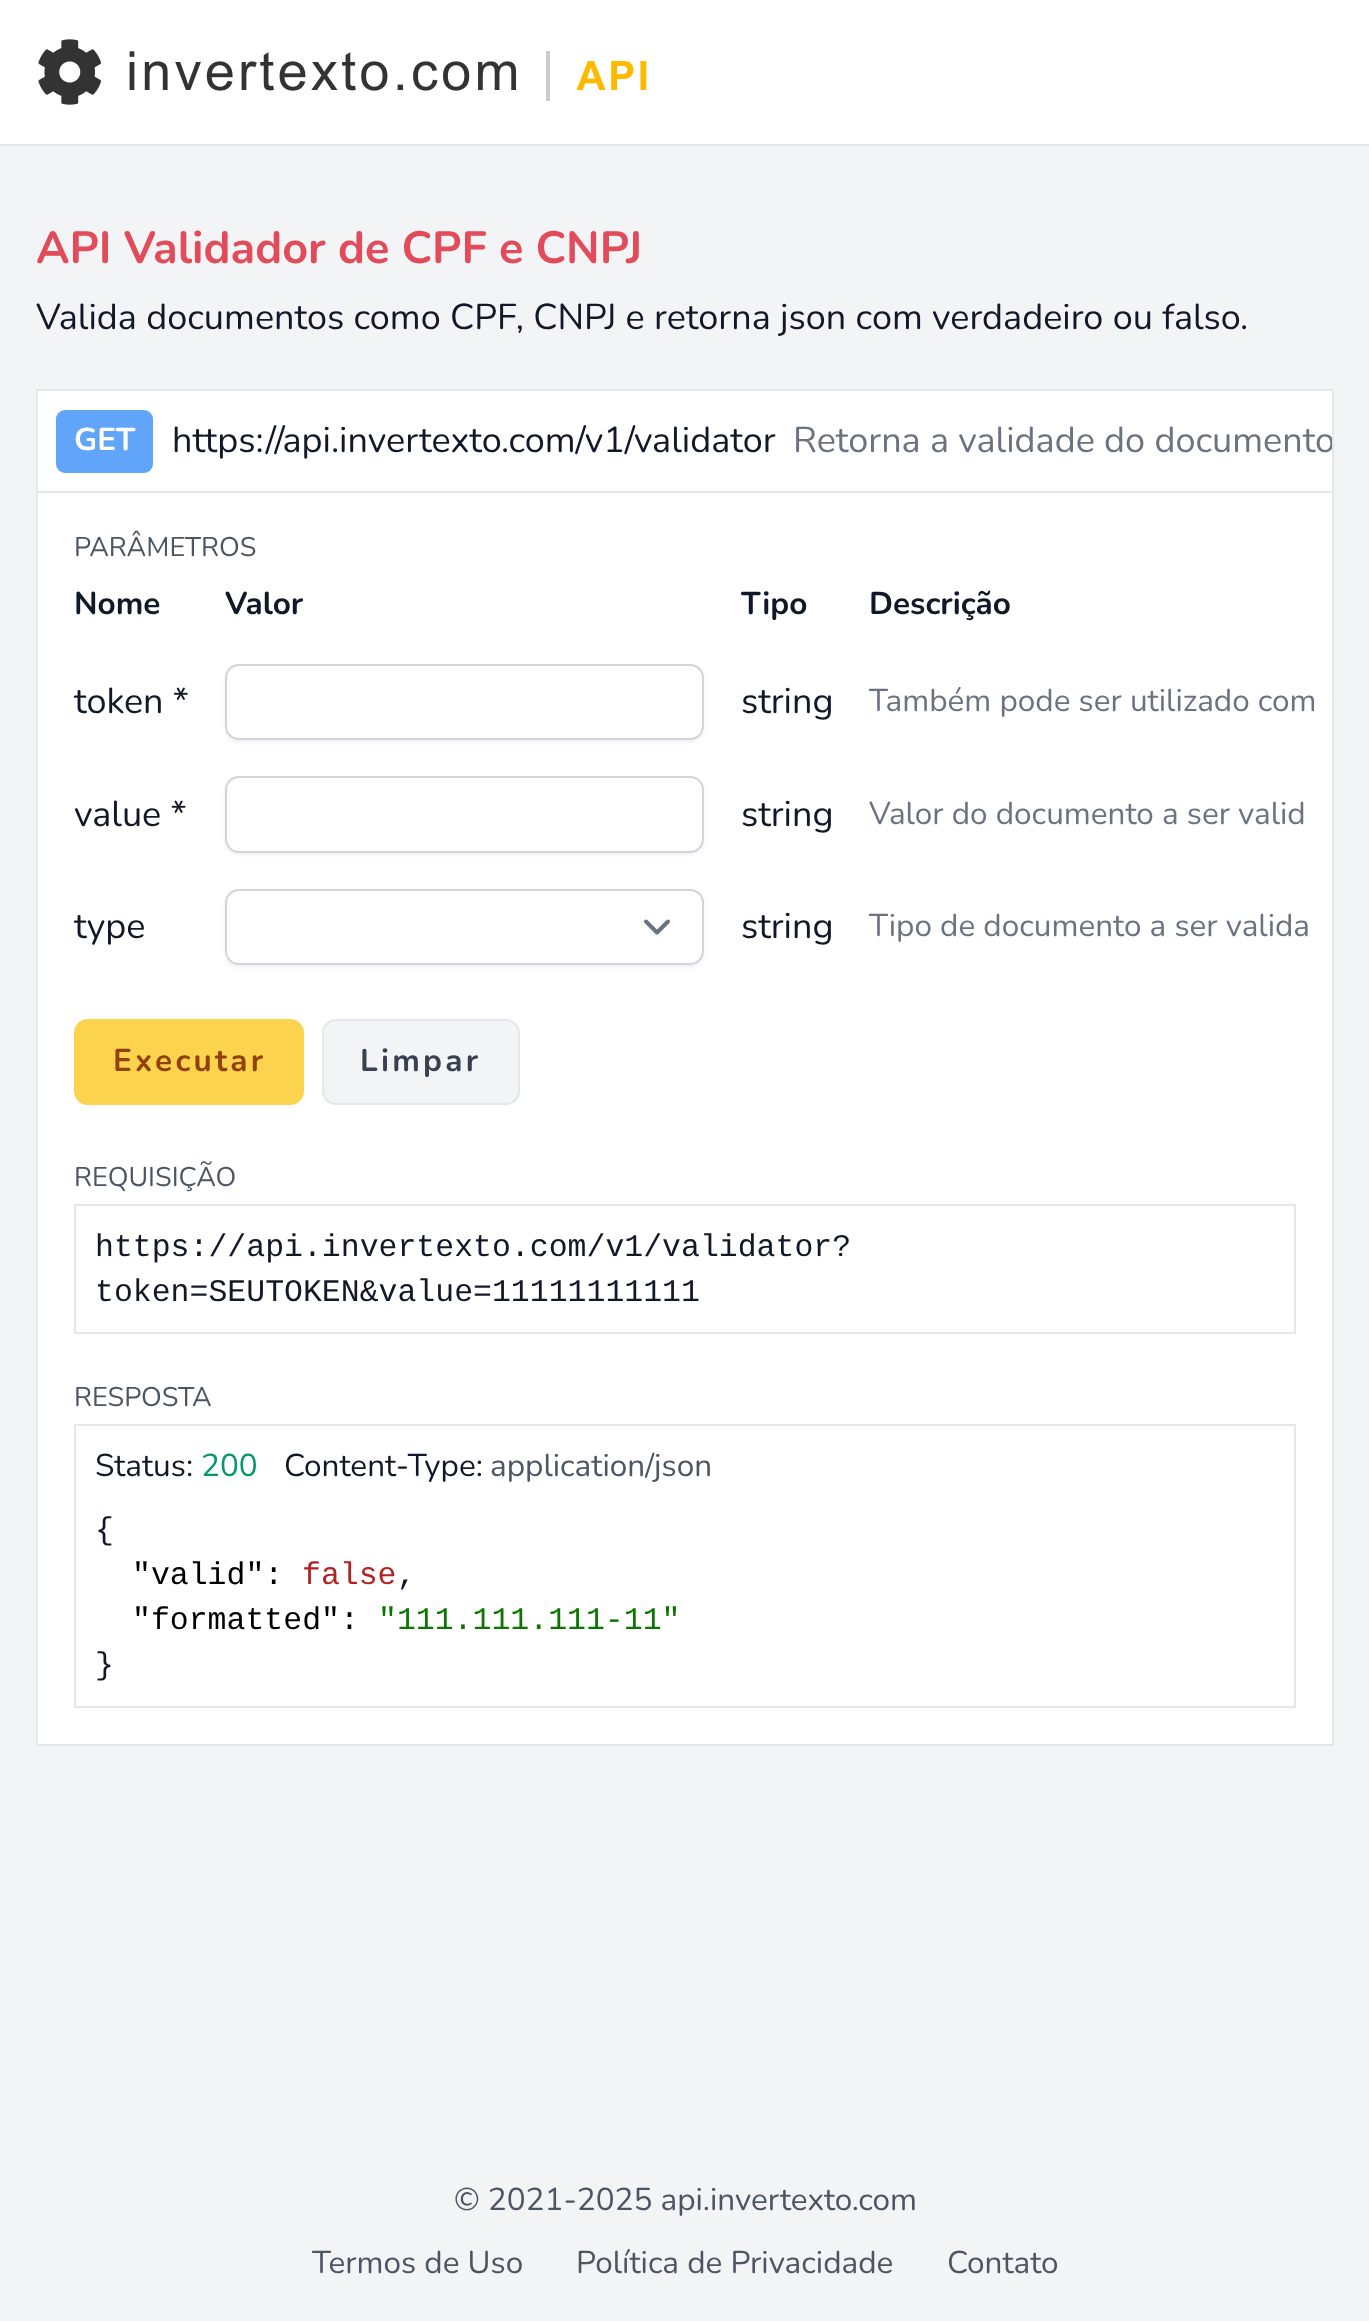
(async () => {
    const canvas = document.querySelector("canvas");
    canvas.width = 1369;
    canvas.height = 2321;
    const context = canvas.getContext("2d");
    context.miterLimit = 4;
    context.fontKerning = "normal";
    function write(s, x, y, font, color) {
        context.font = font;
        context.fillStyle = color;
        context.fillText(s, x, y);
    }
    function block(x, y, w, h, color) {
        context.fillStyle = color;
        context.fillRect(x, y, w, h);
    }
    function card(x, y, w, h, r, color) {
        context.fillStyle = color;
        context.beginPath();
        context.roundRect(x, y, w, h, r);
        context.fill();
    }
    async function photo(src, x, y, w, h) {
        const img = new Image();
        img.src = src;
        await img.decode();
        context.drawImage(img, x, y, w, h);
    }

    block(0, 0, 1369, 2321, "rgb(243, 244, 246)");
    block(0, 0, 1369, 144, "rgb(255, 255, 255)");
    block(0, 144, 1369, 2, "rgb(229, 231, 235)");
    await photo("media/1.png", 38, 39, 609, 66);
    write("API Validador de CPF e CNPJ", 36, 263, "bold 45px Nunito", "rgb(225, 75, 90)");
    write("Valida documentos como CPF, CNPJ e retorna json com verdadeiro ou falso.", 36, 329, "36px Nunito", "rgb(17, 24, 39)");
    context.fillStyle = "rgb(255, 255, 255)";
    context.beginPath();
    context.rect(37, 492, 1296, 1253);
    context.fill();
    context.strokeStyle = "rgb(229, 231, 235)";
    context.lineWidth = 2;
    context.stroke();
    context.beginPath();
    context.rect(37, 390, 1296, 102);
    context.fill();
    context.stroke();
    card(56, 410, 97, 63, 9, "rgb(96, 165, 250)");
    write("GET", 74, 450, "bold 31.5px Nunito", "rgb(255, 255, 255)");
    write("https://api.invertexto.com/v1/validator", 172, 452, "36px Nunito", "rgb(17, 24, 39)");
    context.save();
    context.beginPath();
    context.rect(38, 392, 1294, 99);
    context.clip();
    write("Retorna a validade do documento", 793, 452, "36px Nunito", "rgb(107, 114, 128)");
    context.restore();
    write("PARÂMETROS", 74, 556, "27px Nunito", "rgb(75, 85, 99)");
    write("Nome", 74, 614, "bold 31.5px Nunito", "rgb(17, 24, 39)");
    write("Valor", 225, 614, "bold 31.5px Nunito", "rgb(17, 24, 39)");
    write("Tipo", 741, 614, "bold 31.5px Nunito", "rgb(17, 24, 39)");
    write("Descrição", 869, 614, "bold 31.5px Nunito", "rgb(17, 24, 39)");
    write("token *", 74, 713, "36px Nunito", "rgb(17, 24, 39)");
    context.save();
    context.beginPath();
    context.moveTo(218, 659);
    context.lineTo(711, 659);
    context.lineTo(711, 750);
    context.lineTo(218, 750);
    context.closePath();
    context.moveTo(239, 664);
    context.lineTo(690, 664);
    context.bezierCurveTo(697.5, 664, 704, 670.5, 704, 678);
    context.lineTo(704, 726);
    context.bezierCurveTo(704, 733.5, 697.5, 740, 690, 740);
    context.lineTo(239, 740);
    context.bezierCurveTo(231.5, 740, 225, 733.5, 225, 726);
    context.lineTo(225, 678);
    context.bezierCurveTo(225, 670.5, 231.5, 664, 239, 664);
    context.closePath();
    context.clip("evenodd");
    context.fillStyle = "rgba(0, 0, 0, 0.05)";
    context.filter = "blur(2px)";
    context.beginPath();
    context.roundRect(225, 666, 479, 77, 14);
    context.fill();
    context.filter = "none";
    context.restore();
    context.beginPath();
    context.roundRect(226, 665, 477, 74, 13);
    context.strokeStyle = "rgb(209, 213, 219)";
    context.stroke();
    write("string", 741, 713, "36px Nunito", "rgb(17, 24, 39)");
    context.save();
    context.beginPath();
    context.rect(56, 565, 1258, 418);
    context.clip();
    write("Também pode ser utilizado com", 869, 711, "31.5px Nunito", "rgb(107, 114, 128)");
    context.restore();
    write("value *", 74, 826, "36px Nunito", "rgb(17, 24, 39)");
    context.fillStyle = "rgba(0, 0, 0, 0.05)";
    context.filter = "blur(2px)";
    context.beginPath();
    context.roundRect(225, 779, 479, 76, 14);
    context.fill();
    context.filter = "none";
    context.fillStyle = "rgb(255, 255, 255)";
    context.beginPath();
    context.roundRect(226, 777, 477, 75, 13);
    context.fill();
    context.stroke();
    write("string", 741, 826, "36px Nunito", "rgb(17, 24, 39)");
    write("Valor do documento a ser valid", 869, 824, "31.5px Nunito", "rgb(107, 114, 128)");
    write("type", 74, 938, "36px Nunito", "rgb(17, 24, 39)");
    context.save();
    context.beginPath();
    context.moveTo(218, 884);
    context.lineTo(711, 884);
    context.lineTo(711, 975);
    context.lineTo(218, 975);
    context.closePath();
    context.moveTo(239, 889);
    context.lineTo(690, 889);
    context.bezierCurveTo(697.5, 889, 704, 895.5, 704, 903);
    context.lineTo(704, 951);
    context.bezierCurveTo(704, 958.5, 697.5, 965, 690, 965);
    context.lineTo(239, 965);
    context.bezierCurveTo(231.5, 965, 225, 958.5, 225, 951);
    context.lineTo(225, 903);
    context.bezierCurveTo(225, 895.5, 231.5, 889, 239, 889);
    context.closePath();
    context.clip("evenodd");
    context.fillStyle = "rgba(0, 0, 0, 0.05)";
    context.filter = "blur(2px)";
    context.beginPath();
    context.roundRect(225, 891, 479, 77, 14);
    context.fill();
    context.filter = "none";
    context.restore();
    context.beginPath();
    context.moveTo(646, 921.5);
    context.lineTo(657, 932.5);
    context.lineTo(668, 921.5);
    context.strokeStyle = "rgb(107, 114, 128)";
    context.lineWidth = 4;
    context.lineCap = "round";
    context.lineJoin = "round";
    context.stroke();
    context.beginPath();
    context.roundRect(226, 890, 477, 74, 13);
    context.strokeStyle = "rgb(209, 213, 219)";
    context.lineWidth = 2;
    context.lineJoin = "miter";
    context.stroke();
    write("string", 741, 938, "36px Nunito", "rgb(17, 24, 39)");
    write("Tipo de documento a ser valida", 869, 936, "31.5px Nunito", "rgb(107, 114, 128)");
    card(74, 1019, 230, 86, 14, "rgb(252, 211, 77)");
    context.letterSpacing = "3.25px";
    write("Executar", 113, 1071, "bold 31.5px Nunito", "rgb(146, 64, 14)");
    context.fillStyle = "rgb(243, 244, 246)";
    context.beginPath();
    context.roundRect(323, 1020, 196, 84, 13);
    context.fill();
    context.strokeStyle = "rgb(229, 231, 235)";
    context.stroke();
    write("Limpar", 360, 1071, "bold 31.5px Nunito", "rgb(55, 65, 81)");
    context.letterSpacing = "0px";
    write("REQUISIÇÃO", 74, 1186, "27px Nunito", "rgb(75, 85, 99)");
    context.strokeRect(75, 1205, 1220, 128);
    write("https://api.invertexto.com/v1/validator?", 95, 1256, "31.5px Liberation Mono", "rgb(17, 24, 39)");
    write("token=SEUTOKEN&value=11111111111", 95, 1301, "31.5px Liberation Mono", "rgb(17, 24, 39)");
    write("RESPOSTA", 74, 1406, "27px Nunito", "rgb(75, 85, 99)");
    context.strokeRect(75, 1425, 1220, 282);
    write("Status:", 95, 1476, "31.5px Nunito", "rgb(17, 24, 39)");
    write("200", 201, 1476, "31.5px Nunito", "rgb(5, 150, 105)");
    write("Content-Type:", 284, 1476, "31.5px Nunito", "rgb(17, 24, 39)");
    write("application/json", 490, 1476, "31.5px Nunito", "rgb(75, 85, 99)");
    write("{", 95, 1539, "31.5px Liberation Mono", "rgb(17, 24, 39)");
    write("\"valid\":", 132, 1584, "31.5px Liberation Mono", "rgb(0, 0, 0)");
    write("false", 302, 1584, "31.5px Liberation Mono", "rgb(178, 34, 34)");
    write(",", 397, 1584, "31.5px Liberation Mono", "rgb(17, 24, 39)");
    write("\"formatted\":", 132, 1629, "31.5px Liberation Mono", "rgb(0, 0, 0)");
    write("\"111.111.111-11\"", 378, 1629, "31.5px Liberation Mono", "rgb(11, 117, 0)");
    write("}", 95, 1674, "31.5px Liberation Mono", "rgb(17, 24, 39)");
    write("© 2021-2025 api.invertexto.com", 454, 2210, "31.5px Nunito", "rgb(75, 85, 99)");
    write("Termos de Uso", 312, 2273, "31.5px Nunito", "rgb(75, 85, 99)");
    write("Política de Privacidade", 576, 2273, "31.5px Nunito", "rgb(75, 85, 99)");
    write("Contato", 947, 2273, "31.5px Nunito", "rgb(75, 85, 99)");
})();
